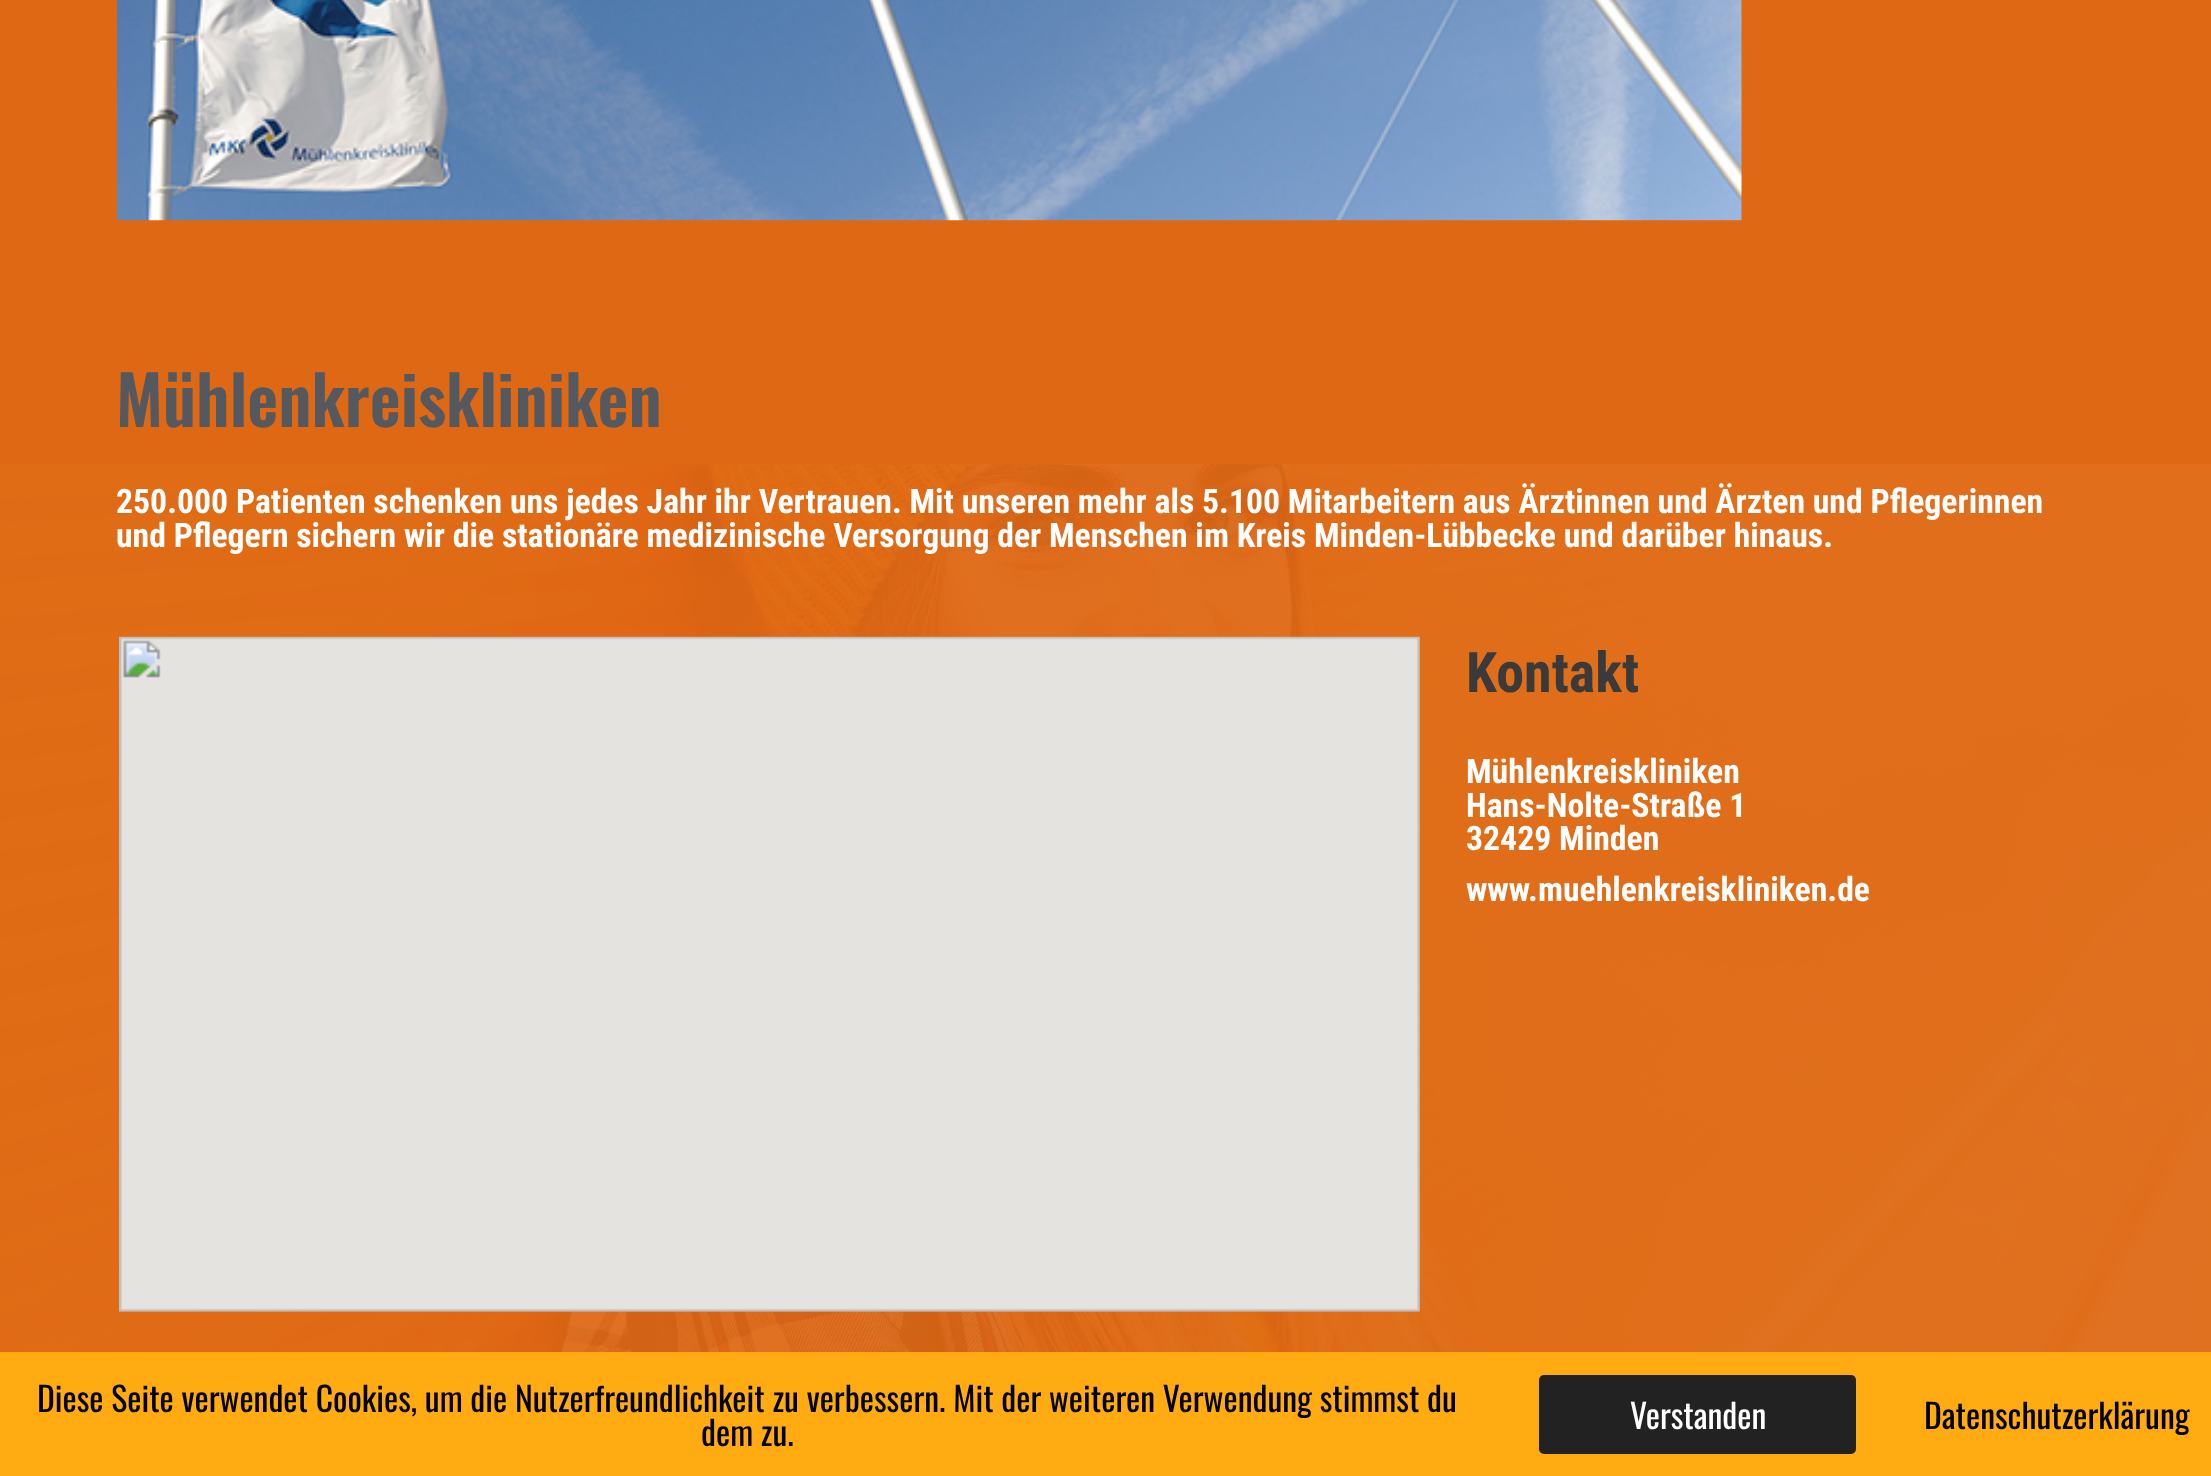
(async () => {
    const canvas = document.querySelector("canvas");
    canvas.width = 2211;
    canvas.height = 1476;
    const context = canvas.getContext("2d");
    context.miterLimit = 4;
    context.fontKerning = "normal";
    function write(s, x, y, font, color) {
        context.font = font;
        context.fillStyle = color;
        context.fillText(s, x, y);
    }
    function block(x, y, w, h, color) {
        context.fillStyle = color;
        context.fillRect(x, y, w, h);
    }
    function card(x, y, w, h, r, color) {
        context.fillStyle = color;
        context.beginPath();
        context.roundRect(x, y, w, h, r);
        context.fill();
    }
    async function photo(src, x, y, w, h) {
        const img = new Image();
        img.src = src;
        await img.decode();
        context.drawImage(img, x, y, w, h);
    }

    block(0, 0, 2211, 1476, "rgb(255, 255, 255)");
    await photo("media/1.png", 0, 464, 2211, 888);
    block(0, 0, 2211, 464, "rgb(222, 104, 20)");
    await photo("media/2.png", 117, 0, 1625, 221);
    write("Mühlenkreiskliniken", 116, 427, "600 67.5px Oswald", "rgb(84, 89, 95)");
    block(0, 464, 2211, 128, "rgba(222, 104, 20, 0.94)");
    write("250.000 Patienten schenken uns jedes Jahr ihr Vertrauen. Mit unseren mehr als 5.100 Mitarbeitern aus Ärztinnen und Ärzten und Pflegerinnen", 116, 513, "bold 33.75px Roboto Condensed", "rgb(255, 254, 254)");
    write("und Pflegern sichern wir die stationäre medizinische Versorgung der Menschen im Kreis Minden-Lübbecke und darüber hinaus.", 116, 547, "bold 33.75px Roboto Condensed", "rgb(255, 254, 254)");
    block(0, 592, 2211, 760, "rgba(222, 104, 20, 0.94)");
    await photo("media/3.png", 119, 636, 1301, 676);
    write("Kontakt", 1466, 692, "bold 56px Roboto Condensed", "rgb(58, 58, 58)");
    write("Mühlenkreiskliniken", 1466, 783, "bold 33.75px Roboto Condensed", "rgb(255, 254, 254)");
    write("Hans-Nolte-Straße 1", 1466, 817, "bold 33.75px Roboto Condensed", "rgb(255, 254, 254)");
    write("32429 Minden", 1466, 850, "bold 33.75px Roboto Condensed", "rgb(255, 254, 254)");
    write("www.muehlenkreiskliniken.de", 1466, 901, "bold 33.75px Roboto Condensed", "rgb(255, 254, 254)");
    block(0, 1352, 2211, 124, "rgb(255, 171, 17)");
    write("Diese Seite verwendet Cookies, um die Nutzerfreundlichkeit zu verbessern. Mit der weiteren Verwendung stimmst du", 37, 1412, "33.75px Oswald", "rgb(0, 0, 0)");
    write("dem zu.", 701, 1446, "33.75px Oswald", "rgb(0, 0, 0)");
    card(1539, 1375, 317, 79, 5, "rgb(34, 34, 34)");
    write("Verstanden", 1630, 1429, "33.75px Oswald", "rgb(255, 254, 254)");
    write("Datenschutzerklärung", 1924, 1429, "33.75px Oswald", "rgb(0, 0, 0)");
})();
